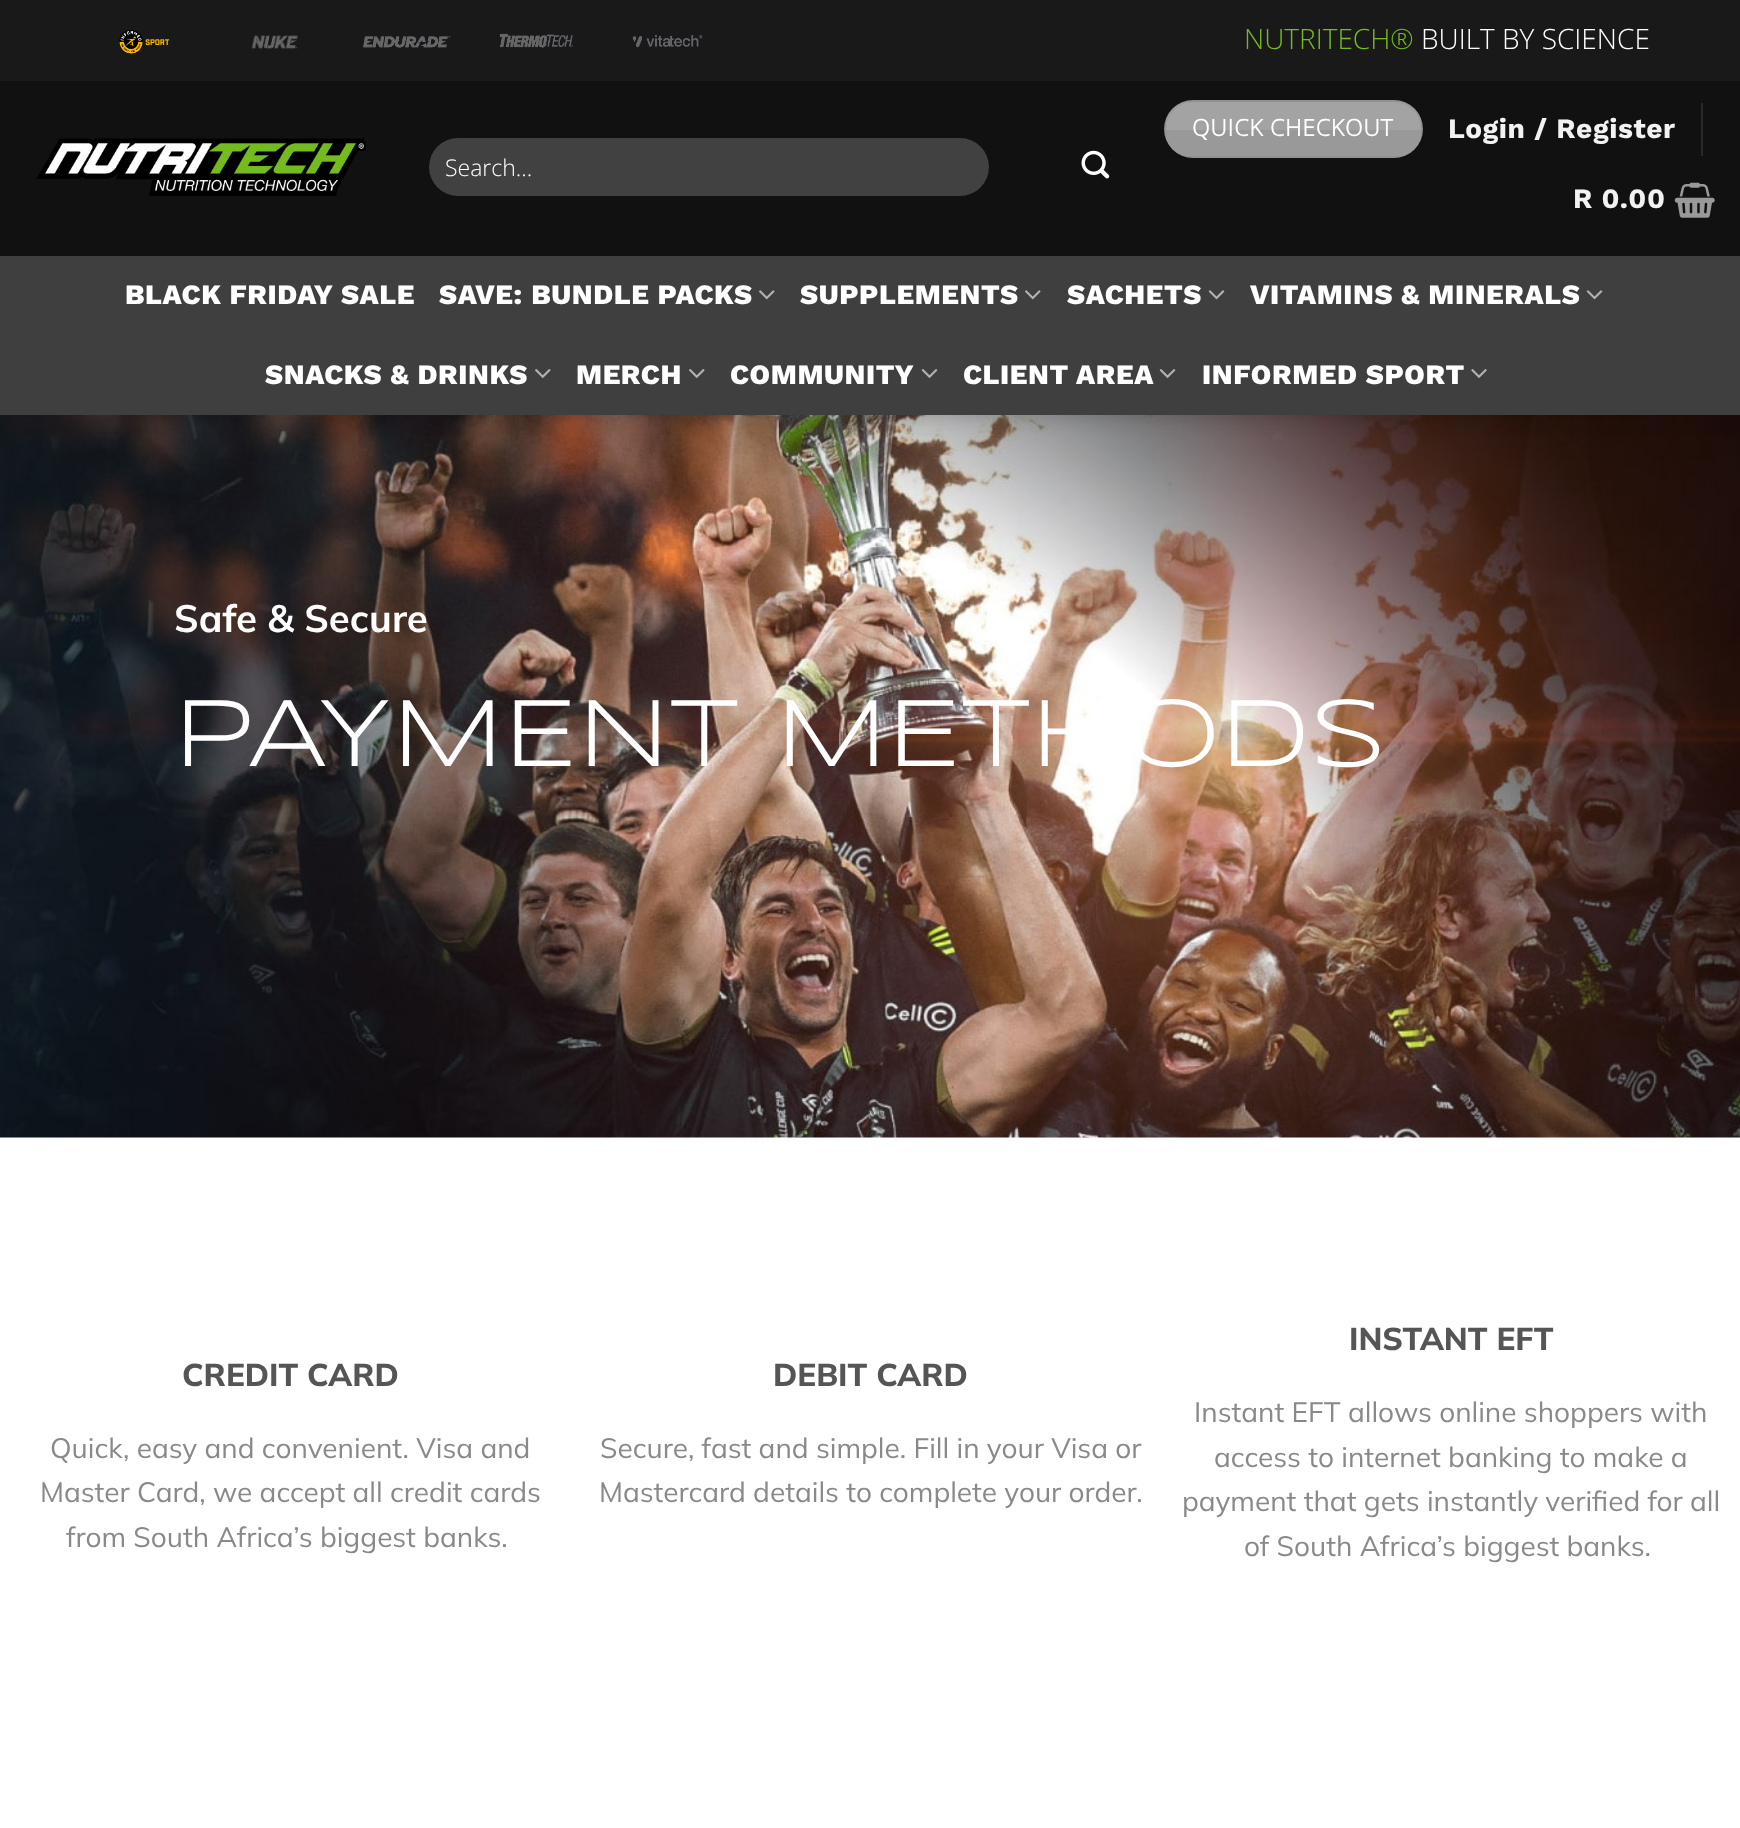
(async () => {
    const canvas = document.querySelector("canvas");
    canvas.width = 1740;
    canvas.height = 1828;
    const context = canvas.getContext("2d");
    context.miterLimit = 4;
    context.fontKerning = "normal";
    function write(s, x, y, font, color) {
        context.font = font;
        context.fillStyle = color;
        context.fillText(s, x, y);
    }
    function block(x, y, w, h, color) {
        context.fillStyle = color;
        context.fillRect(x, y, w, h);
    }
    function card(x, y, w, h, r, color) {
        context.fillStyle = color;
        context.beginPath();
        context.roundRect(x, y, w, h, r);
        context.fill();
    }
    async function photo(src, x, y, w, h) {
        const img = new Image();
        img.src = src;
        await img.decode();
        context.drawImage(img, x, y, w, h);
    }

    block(0, 0, 1740, 1828, "rgb(255, 255, 255)");
    await photo("media/14.png", 0, 415, 1740, 723);
    context.fillStyle = "rgba(0, 0, 0, 0.15)";
    context.filter = "blur(9px)";
    context.beginPath();
    context.rect(2, 2, 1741, 415);
    context.fill();
    context.filter = "none";
    block(0, 0, 1740, 81, "rgb(25, 25, 26)");
    await photo("media/1.png", 119, 29, 50, 25);
    await photo("media/2.png", 251, 35, 47, 14);
    await photo("media/3.png", 363, 35, 88, 13);
    await photo("media/4.png", 499, 33, 74, 16);
    await photo("media/5.png", 632, 35, 71, 13);
    write("NUTRITECH®", 1244, 49, "300 28px Open Sans", "rgb(116, 188, 31)");
    write("BUILT BY SCIENCE", 1421, 49, "300 28px Open Sans", "rgb(255, 255, 255)");
    block(0, 81, 1740, 175, "rgb(17, 17, 17)");
    await photo("media/6.png", 36, 138, 330, 58);
    card(429, 138, 560, 58, 29, "rgb(65, 65, 65)");
    write("Search…", 445, 176, "300 23px Open Sans", "rgb(255, 255, 255)");
    await photo("media/7.png", 1081, 150, 29, 29);
    card(1164, 100, 259, 58, 29, "rgb(153, 153, 153)");
    context.strokeStyle = "rgba(0, 0, 0, 0.05)";
    context.lineWidth = 2;
    context.strokeRect(1165, 101, 257, 56);
    context.fillStyle = "rgba(255, 255, 255, 0.1)";
    context.beginPath();
    context.roundRect(1166, 102, 255, 28, [27, 27, 0, 0]);
    context.fill();
    context.letterSpacing = "0.75px";
    write("QUICK CHECKOUT", 1192, 136, "bold 23px Open Sans", "rgb(255, 255, 255)");
    context.letterSpacing = "0.6px";
    write("Login / Register", 1448, 138, "bold 28px Work Sans", "rgb(242, 242, 242)");
    block(1701, 103, 2, 53, "rgb(41, 41, 41)");
    write("R 0.00", 1573, 208, "bold 28px Work Sans", "rgb(242, 242, 242)");
    await photo("media/8.png", 1674, 182, 41, 36);
    block(0, 256, 1740, 159, "rgb(63, 63, 63)");
    write("BLACK FRIDAY SALE", 125, 304, "800 28px Work Sans", "rgb(255, 255, 255)");
    write("SAVE: BUNDLE PACKS", 439, 304, "800 28px Work Sans", "rgb(255, 255, 255)");
    await photo("media/9.png", 759, 290, 16, 10);
    write("SUPPLEMENTS", 800, 304, "800 28px Work Sans", "rgb(255, 255, 255)");
    await photo("media/9.png", 1025, 290, 16, 10);
    write("SACHETS", 1067, 304, "800 28px Work Sans", "rgb(255, 255, 255)");
    await photo("media/10.png", 1208, 290, 17, 10);
    write("VITAMINS & MINERALS", 1250, 304, "800 28px Work Sans", "rgb(255, 255, 255)");
    await photo("media/10.png", 1586, 290, 17, 10);
    write("SNACKS & DRINKS", 265, 384, "800 28px Work Sans", "rgb(255, 255, 255)");
    await photo("media/11.png", 535, 369, 16, 9);
    write("MERCH", 576, 384, "800 28px Work Sans", "rgb(255, 255, 255)");
    await photo("media/11.png", 689, 369, 16, 9);
    write("COMMUNITY", 730, 384, "800 28px Work Sans", "rgb(255, 255, 255)");
    await photo("media/12.png", 921, 369, 17, 9);
    write("CLIENT AREA", 963, 384, "800 28px Work Sans", "rgb(255, 255, 255)");
    await photo("media/12.png", 1159, 369, 17, 9);
    write("INFORMED SPORT", 1202, 384, "800 28px Work Sans", "rgb(255, 255, 255)");
    await photo("media/13.png", 1471, 369, 16, 9);
    context.letterSpacing = "0px";
    write("Safe & Secure", 174, 632, "bold 38.25px Mulish", "rgb(255, 255, 255)");
    write("PAYMENT METHODS", 174, 766, "98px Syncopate", "rgb(255, 255, 255)");
    write("CREDIT CARD", 182, 1386, "800 31.5px Mulish", "rgb(85, 85, 85)");
    write("Quick, easy and convenient. Visa and", 50, 1458, "28px Mulish", "rgb(137, 137, 137)");
    write("Master Card, we accept all credit cards", 40, 1502, "28px Mulish", "rgb(137, 137, 137)");
    write("from South Africa’s biggest banks.", 66, 1547, "28px Mulish", "rgb(137, 137, 137)");
    write("DEBIT CARD", 773, 1386, "800 31.5px Mulish", "rgb(85, 85, 85)");
    write("Secure, fast and simple. Fill in your Visa or", 600, 1458, "28px Mulish", "rgb(137, 137, 137)");
    write("Mastercard details to complete your order.", 599, 1502, "28px Mulish", "rgb(137, 137, 137)");
    write("INSTANT EFT", 1349, 1350, "800 31.5px Mulish", "rgb(85, 85, 85)");
    write("Instant EFT allows online shoppers with", 1194, 1422, "28px Mulish", "rgb(137, 137, 137)");
    write("access to internet banking to make a", 1214, 1467, "28px Mulish", "rgb(137, 137, 137)");
    write("payment that gets instantly verified for all", 1182, 1511, "28px Mulish", "rgb(137, 137, 137)");
    write("of South Africa’s biggest banks.", 1244, 1556, "28px Mulish", "rgb(137, 137, 137)");
})();
